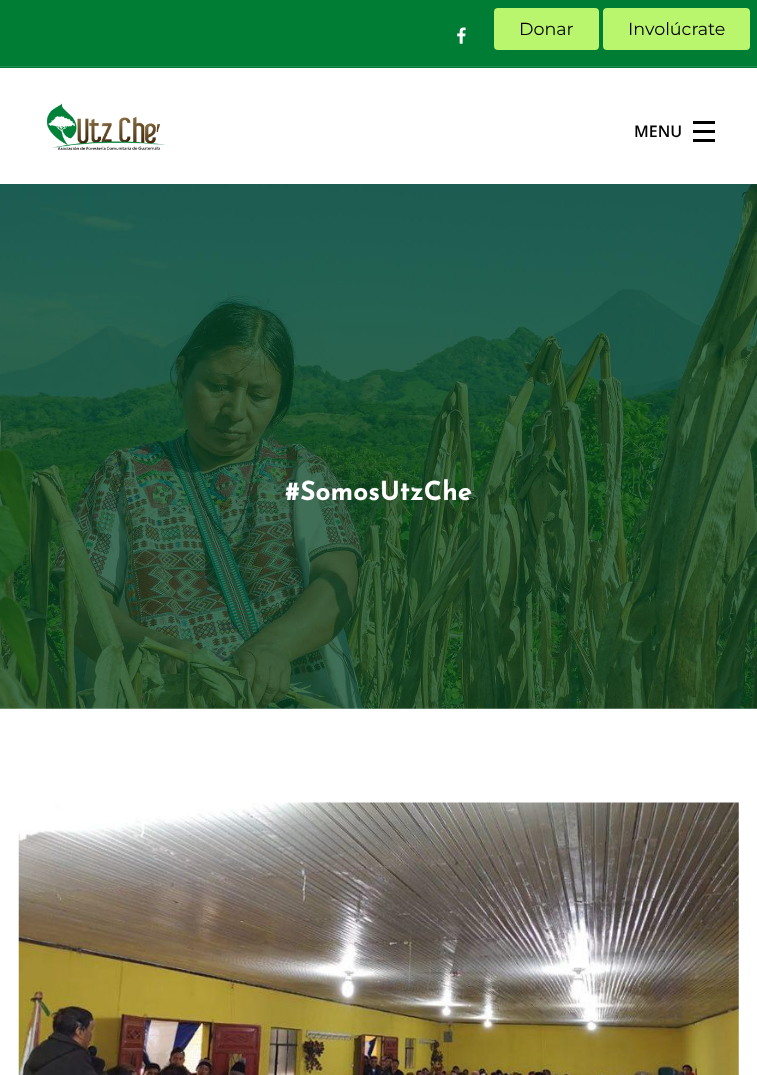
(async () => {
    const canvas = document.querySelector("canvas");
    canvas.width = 757;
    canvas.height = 1075;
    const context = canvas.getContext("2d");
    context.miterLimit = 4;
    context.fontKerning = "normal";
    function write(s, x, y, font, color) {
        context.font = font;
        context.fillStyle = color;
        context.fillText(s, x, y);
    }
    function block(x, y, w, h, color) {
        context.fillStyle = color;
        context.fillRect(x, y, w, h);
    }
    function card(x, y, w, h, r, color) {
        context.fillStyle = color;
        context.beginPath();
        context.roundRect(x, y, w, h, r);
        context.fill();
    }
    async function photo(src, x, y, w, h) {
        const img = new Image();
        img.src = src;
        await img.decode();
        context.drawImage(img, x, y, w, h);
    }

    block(0, 0, 757, 1075, "rgb(255, 255, 255)");
    block(0, 0, 757, 68, "rgb(0, 125, 53)");
    block(0, 66, 757, 1, "rgb(33, 140, 79)");
    await photo("media/1.png", 457, 27, 9, 17);
    card(494, 8, 105, 42, 4, "rgb(186, 245, 110)");
    write("Donar", 519, 35, "17.5px Montserrat", "rgb(0, 0, 0)");
    card(603, 8, 147, 42, 4, "rgb(186, 245, 110)");
    write("Involúcrate", 628, 35, "17.5px Montserrat", "rgb(0, 0, 0)");
    await photo("media/2.png", 47, 103, 118, 47);
    write("MENU", 634, 137, "600 16px Open Sans", "rgb(0, 0, 0)");
    block(693, 139, 22, 3, "rgb(0, 0, 0)");
    block(693, 130, 22, 3, "rgb(0, 0, 0)");
    block(693, 121, 22, 3, "rgb(0, 0, 0)");
    await photo("media/3.png", 0, 184, 757, 525);
    write("#SomosUtzChe", 285, 500, "100 26.25px Josefin Sans", "rgb(255, 255, 255)");
    await photo("media/4.png", 18, 802, 721, 273);
})();
